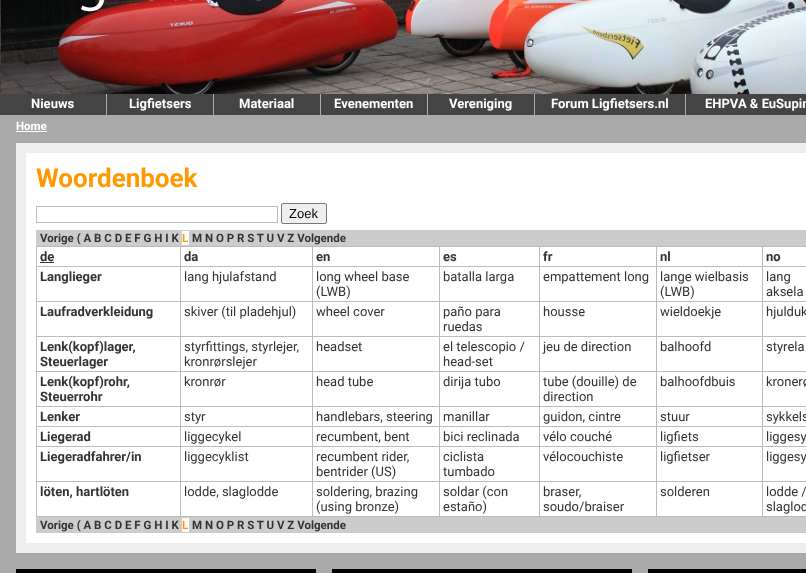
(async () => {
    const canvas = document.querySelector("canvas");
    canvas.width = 806;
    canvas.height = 573;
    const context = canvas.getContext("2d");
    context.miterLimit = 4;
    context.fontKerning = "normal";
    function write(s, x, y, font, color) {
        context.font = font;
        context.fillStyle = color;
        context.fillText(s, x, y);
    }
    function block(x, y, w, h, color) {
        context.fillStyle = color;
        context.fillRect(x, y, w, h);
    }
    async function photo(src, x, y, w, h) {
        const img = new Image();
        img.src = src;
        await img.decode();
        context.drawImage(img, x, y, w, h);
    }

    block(0, 0, 806, 573, "rgb(68, 68, 68)");
    await photo("media/1.png", 0, 0, 806, 94);
    await photo("media/2.png", 81, 0, 203, 12);
    block(106, 94, 1, 21, "rgb(170, 170, 170)");
    write("Nieuws", 31, 108, "bold 13px Roboto", "rgb(255, 255, 255)");
    block(213, 94, 1, 21, "rgb(170, 170, 170)");
    write("Ligfietsers", 129, 108, "bold 13px Roboto", "rgb(255, 255, 255)");
    block(320, 94, 1, 21, "rgb(170, 170, 170)");
    write("Materiaal", 239, 108, "bold 13px Roboto", "rgb(255, 255, 255)");
    block(427, 94, 1, 21, "rgb(170, 170, 170)");
    write("Evenementen", 334, 108, "bold 13px Roboto", "rgb(255, 255, 255)");
    block(534, 94, 1, 21, "rgb(170, 170, 170)");
    write("Vereniging", 449, 108, "bold 13px Roboto", "rgb(255, 255, 255)");
    block(685, 94, 1, 21, "rgb(170, 170, 170)");
    write("Forum Ligfietsers.nl", 551, 108, "bold 13px Roboto", "rgb(255, 255, 255)");
    write("EHPVA & EuSupin", 705, 108, "bold 13px Roboto", "rgb(255, 255, 255)");
    block(0, 115, 806, 458, "rgb(170, 170, 170)");
    write("Home", 16, 130, "bold 11.5px Roboto", "rgb(255, 255, 255)");
    block(16, 131, 31, 1, "rgb(255, 255, 255)");
    block(16, 143, 790, 410, "rgb(238, 238, 238)");
    block(26, 153, 780, 390, "rgb(255, 255, 255)");
    write("Woordenboek", 36, 187, "bold 26px Roboto", "rgb(255, 153, 0)");
    context.strokeStyle = "rgb(187, 187, 187)";
    context.strokeRect(36.5, 206.5, 241, 16);
    context.fillStyle = "rgb(239, 239, 239)";
    context.beginPath();
    context.roundRect(281.5, 203.5, 45, 20, 1.5);
    context.fill();
    context.strokeStyle = "rgb(118, 118, 118)";
    context.stroke();
    write("Zoek", 289, 218, "13px Liberation Sans", "rgb(0, 0, 0)");
    block(36, 230, 770, 16, "rgb(204, 204, 204)");
    write("Vorige ( A B C D E F G H I K", 40, 242, "bold 11.5px Roboto", "rgb(51, 51, 51)");
    block(182, 231, 7, 14, "rgb(255, 255, 255)");
    write("L", 182, 242, "bold 11.5px Roboto", "rgb(255, 153, 0)");
    write("M N O P R S T U V Z Volgende", 192, 242, "bold 11.5px Roboto", "rgb(51, 51, 51)");
    block(36, 246, 770, 1, "rgb(187, 187, 187)");
    block(36, 516, 770, 1, "rgb(187, 187, 187)");
    block(36, 246, 1, 271, "rgb(187, 187, 187)");
    write("de", 40, 261, "bold 13px Roboto", "rgb(51, 51, 51)");
    block(40, 262, 14, 1, "rgb(51, 51, 51)");
    block(762, 266, 44, 1, "rgb(187, 187, 187)");
    block(762, 301, 44, 1, "rgb(187, 187, 187)");
    block(762, 336, 44, 1, "rgb(187, 187, 187)");
    block(762, 371, 44, 1, "rgb(187, 187, 187)");
    block(762, 406, 44, 1, "rgb(187, 187, 187)");
    block(762, 426, 44, 1, "rgb(187, 187, 187)");
    block(762, 446, 44, 1, "rgb(187, 187, 187)");
    block(762, 481, 44, 1, "rgb(187, 187, 187)");
    block(762, 481, 1, 36, "rgb(187, 187, 187)");
    block(656, 481, 107, 1, "rgb(187, 187, 187)");
    block(762, 446, 1, 36, "rgb(187, 187, 187)");
    block(656, 446, 107, 1, "rgb(187, 187, 187)");
    block(762, 426, 1, 21, "rgb(187, 187, 187)");
    block(656, 426, 107, 1, "rgb(187, 187, 187)");
    block(762, 406, 1, 21, "rgb(187, 187, 187)");
    block(656, 406, 107, 1, "rgb(187, 187, 187)");
    block(762, 371, 1, 36, "rgb(187, 187, 187)");
    block(656, 371, 107, 1, "rgb(187, 187, 187)");
    block(762, 336, 1, 36, "rgb(187, 187, 187)");
    block(656, 336, 107, 1, "rgb(187, 187, 187)");
    block(762, 301, 1, 36, "rgb(187, 187, 187)");
    block(656, 301, 107, 1, "rgb(187, 187, 187)");
    block(762, 266, 1, 36, "rgb(187, 187, 187)");
    block(656, 266, 107, 1, "rgb(187, 187, 187)");
    block(656, 481, 1, 36, "rgb(187, 187, 187)");
    block(539, 481, 118, 1, "rgb(187, 187, 187)");
    block(656, 446, 1, 36, "rgb(187, 187, 187)");
    block(539, 446, 118, 1, "rgb(187, 187, 187)");
    block(656, 426, 1, 21, "rgb(187, 187, 187)");
    block(539, 426, 118, 1, "rgb(187, 187, 187)");
    block(656, 406, 1, 21, "rgb(187, 187, 187)");
    block(539, 406, 118, 1, "rgb(187, 187, 187)");
    block(656, 371, 1, 36, "rgb(187, 187, 187)");
    block(539, 371, 118, 1, "rgb(187, 187, 187)");
    block(656, 336, 1, 36, "rgb(187, 187, 187)");
    block(539, 336, 118, 1, "rgb(187, 187, 187)");
    block(656, 301, 1, 36, "rgb(187, 187, 187)");
    block(539, 301, 118, 1, "rgb(187, 187, 187)");
    block(656, 266, 1, 36, "rgb(187, 187, 187)");
    block(539, 266, 118, 1, "rgb(187, 187, 187)");
    block(539, 481, 1, 36, "rgb(187, 187, 187)");
    block(439, 481, 101, 1, "rgb(187, 187, 187)");
    block(539, 446, 1, 36, "rgb(187, 187, 187)");
    block(439, 446, 101, 1, "rgb(187, 187, 187)");
    block(539, 426, 1, 21, "rgb(187, 187, 187)");
    block(439, 426, 101, 1, "rgb(187, 187, 187)");
    block(539, 406, 1, 21, "rgb(187, 187, 187)");
    block(439, 406, 101, 1, "rgb(187, 187, 187)");
    block(539, 371, 1, 36, "rgb(187, 187, 187)");
    block(439, 371, 101, 1, "rgb(187, 187, 187)");
    block(539, 336, 1, 36, "rgb(187, 187, 187)");
    block(439, 336, 101, 1, "rgb(187, 187, 187)");
    block(539, 301, 1, 36, "rgb(187, 187, 187)");
    block(439, 301, 101, 1, "rgb(187, 187, 187)");
    block(539, 266, 1, 36, "rgb(187, 187, 187)");
    block(439, 266, 101, 1, "rgb(187, 187, 187)");
    block(439, 481, 1, 36, "rgb(187, 187, 187)");
    block(312, 481, 128, 1, "rgb(187, 187, 187)");
    block(439, 446, 1, 36, "rgb(187, 187, 187)");
    block(312, 446, 128, 1, "rgb(187, 187, 187)");
    block(439, 426, 1, 21, "rgb(187, 187, 187)");
    block(312, 426, 128, 1, "rgb(187, 187, 187)");
    block(439, 406, 1, 21, "rgb(187, 187, 187)");
    block(312, 406, 128, 1, "rgb(187, 187, 187)");
    block(439, 371, 1, 36, "rgb(187, 187, 187)");
    block(312, 371, 128, 1, "rgb(187, 187, 187)");
    block(439, 336, 1, 36, "rgb(187, 187, 187)");
    block(312, 336, 128, 1, "rgb(187, 187, 187)");
    block(439, 301, 1, 36, "rgb(187, 187, 187)");
    block(312, 301, 128, 1, "rgb(187, 187, 187)");
    block(439, 266, 1, 36, "rgb(187, 187, 187)");
    block(312, 266, 128, 1, "rgb(187, 187, 187)");
    block(312, 481, 1, 36, "rgb(187, 187, 187)");
    block(180, 481, 133, 1, "rgb(187, 187, 187)");
    block(312, 446, 1, 36, "rgb(187, 187, 187)");
    block(180, 446, 133, 1, "rgb(187, 187, 187)");
    block(312, 426, 1, 21, "rgb(187, 187, 187)");
    block(180, 426, 133, 1, "rgb(187, 187, 187)");
    block(312, 406, 1, 21, "rgb(187, 187, 187)");
    block(180, 406, 133, 1, "rgb(187, 187, 187)");
    block(312, 371, 1, 36, "rgb(187, 187, 187)");
    block(180, 371, 133, 1, "rgb(187, 187, 187)");
    block(312, 336, 1, 36, "rgb(187, 187, 187)");
    block(180, 336, 133, 1, "rgb(187, 187, 187)");
    block(312, 301, 1, 36, "rgb(187, 187, 187)");
    block(180, 301, 133, 1, "rgb(187, 187, 187)");
    block(312, 266, 1, 36, "rgb(187, 187, 187)");
    block(180, 266, 133, 1, "rgb(187, 187, 187)");
    block(180, 481, 1, 36, "rgb(187, 187, 187)");
    block(36, 481, 145, 1, "rgb(187, 187, 187)");
    block(180, 446, 1, 36, "rgb(187, 187, 187)");
    block(36, 446, 145, 1, "rgb(187, 187, 187)");
    block(180, 426, 1, 21, "rgb(187, 187, 187)");
    block(36, 426, 145, 1, "rgb(187, 187, 187)");
    block(180, 406, 1, 21, "rgb(187, 187, 187)");
    block(36, 406, 145, 1, "rgb(187, 187, 187)");
    block(180, 371, 1, 36, "rgb(187, 187, 187)");
    block(36, 371, 145, 1, "rgb(187, 187, 187)");
    block(180, 336, 1, 36, "rgb(187, 187, 187)");
    block(36, 336, 145, 1, "rgb(187, 187, 187)");
    block(180, 301, 1, 36, "rgb(187, 187, 187)");
    block(36, 301, 145, 1, "rgb(187, 187, 187)");
    block(180, 266, 1, 36, "rgb(187, 187, 187)");
    block(36, 266, 145, 1, "rgb(187, 187, 187)");
    block(180, 246, 1, 21, "rgb(187, 187, 187)");
    write("da", 184, 261, "bold 13px Roboto", "rgb(51, 51, 51)");
    block(312, 246, 1, 21, "rgb(187, 187, 187)");
    write("en", 316, 261, "bold 13px Roboto", "rgb(51, 51, 51)");
    block(439, 246, 1, 21, "rgb(187, 187, 187)");
    write("es", 443, 261, "bold 13px Roboto", "rgb(51, 51, 51)");
    block(539, 246, 1, 21, "rgb(187, 187, 187)");
    write("fr", 543, 261, "bold 13px Roboto", "rgb(51, 51, 51)");
    block(656, 246, 1, 21, "rgb(187, 187, 187)");
    write("nl", 660, 261, "bold 13px Roboto", "rgb(51, 51, 51)");
    block(762, 246, 1, 21, "rgb(187, 187, 187)");
    write("no", 766, 261, "bold 13px Roboto", "rgb(51, 51, 51)");
    write("Langlieger", 40, 281, "bold 13px Roboto", "rgb(51, 51, 51)");
    write("lang hjulafstand", 184, 281, "13px Roboto", "rgb(51, 51, 51)");
    write("long wheel base", 316, 281, "13px Roboto", "rgb(51, 51, 51)");
    write("(LWB)", 316, 296, "13px Roboto", "rgb(51, 51, 51)");
    write("batalla larga", 443, 281, "13px Roboto", "rgb(51, 51, 51)");
    write("empattement long", 543, 281, "13px Roboto", "rgb(51, 51, 51)");
    write("lange wielbasis", 660, 281, "13px Roboto", "rgb(51, 51, 51)");
    write("(LWB)", 660, 296, "13px Roboto", "rgb(51, 51, 51)");
    write("lang", 766, 281, "13px Roboto", "rgb(51, 51, 51)");
    write("aksela", 766, 296, "13px Roboto", "rgb(51, 51, 51)");
    write("Laufradverkleidung", 40, 316, "bold 13px Roboto", "rgb(51, 51, 51)");
    write("skiver (til pladehjul)", 184, 316, "13px Roboto", "rgb(51, 51, 51)");
    write("wheel cover", 316, 316, "13px Roboto", "rgb(51, 51, 51)");
    write("paño para", 443, 316, "13px Roboto", "rgb(51, 51, 51)");
    write("ruedas", 443, 331, "13px Roboto", "rgb(51, 51, 51)");
    write("housse", 543, 316, "13px Roboto", "rgb(51, 51, 51)");
    write("wieldoekje", 660, 316, "13px Roboto", "rgb(51, 51, 51)");
    write("hjulduk", 766, 316, "13px Roboto", "rgb(51, 51, 51)");
    write("Lenk(kopf)lager,", 40, 351, "bold 13px Roboto", "rgb(51, 51, 51)");
    write("Steuerlager", 40, 366, "bold 13px Roboto", "rgb(51, 51, 51)");
    write("styrfittings, styrlejer,", 184, 351, "13px Roboto", "rgb(51, 51, 51)");
    write("kronrørslejer", 184, 366, "13px Roboto", "rgb(51, 51, 51)");
    write("headset", 316, 351, "13px Roboto", "rgb(51, 51, 51)");
    write("el telescopio /", 443, 351, "13px Roboto", "rgb(51, 51, 51)");
    write("head-set", 443, 366, "13px Roboto", "rgb(51, 51, 51)");
    write("jeu de direction", 543, 351, "13px Roboto", "rgb(51, 51, 51)");
    write("balhoofd", 660, 351, "13px Roboto", "rgb(51, 51, 51)");
    write("styrela", 766, 351, "13px Roboto", "rgb(51, 51, 51)");
    write("Lenk(kopf)rohr,", 40, 386, "bold 13px Roboto", "rgb(51, 51, 51)");
    write("Steuerrohr", 40, 401, "bold 13px Roboto", "rgb(51, 51, 51)");
    write("kronrør", 184, 386, "13px Roboto", "rgb(51, 51, 51)");
    write("head tube", 316, 386, "13px Roboto", "rgb(51, 51, 51)");
    write("dirija tubo", 443, 386, "13px Roboto", "rgb(51, 51, 51)");
    write("tube (douille) de", 543, 386, "13px Roboto", "rgb(51, 51, 51)");
    write("direction", 543, 401, "13px Roboto", "rgb(51, 51, 51)");
    write("balhoofdbuis", 660, 386, "13px Roboto", "rgb(51, 51, 51)");
    write("kronerø", 766, 386, "13px Roboto", "rgb(51, 51, 51)");
    write("Lenker", 40, 421, "bold 13px Roboto", "rgb(51, 51, 51)");
    write("styr", 184, 421, "13px Roboto", "rgb(51, 51, 51)");
    write("handlebars, steering", 316, 421, "13px Roboto", "rgb(51, 51, 51)");
    write("manillar", 443, 421, "13px Roboto", "rgb(51, 51, 51)");
    write("guidon, cintre", 543, 421, "13px Roboto", "rgb(51, 51, 51)");
    write("stuur", 660, 421, "13px Roboto", "rgb(51, 51, 51)");
    write("sykkels", 766, 421, "13px Roboto", "rgb(51, 51, 51)");
    write("Liegerad", 40, 441, "bold 13px Roboto", "rgb(51, 51, 51)");
    write("liggecykel", 184, 441, "13px Roboto", "rgb(51, 51, 51)");
    write("recumbent, bent", 316, 441, "13px Roboto", "rgb(51, 51, 51)");
    write("bici reclinada", 443, 441, "13px Roboto", "rgb(51, 51, 51)");
    write("vélo couché", 543, 441, "13px Roboto", "rgb(51, 51, 51)");
    write("ligfiets", 660, 441, "13px Roboto", "rgb(51, 51, 51)");
    write("liggesy", 766, 441, "13px Roboto", "rgb(51, 51, 51)");
    write("Liegeradfahrer/in", 40, 461, "bold 13px Roboto", "rgb(51, 51, 51)");
    write("liggecyklist", 184, 461, "13px Roboto", "rgb(51, 51, 51)");
    write("recumbent rider,", 316, 461, "13px Roboto", "rgb(51, 51, 51)");
    write("bentrider (US)", 316, 476, "13px Roboto", "rgb(51, 51, 51)");
    write("ciclista", 443, 461, "13px Roboto", "rgb(51, 51, 51)");
    write("tumbado", 443, 476, "13px Roboto", "rgb(51, 51, 51)");
    write("vélocouchiste", 543, 461, "13px Roboto", "rgb(51, 51, 51)");
    write("ligfietser", 660, 461, "13px Roboto", "rgb(51, 51, 51)");
    write("liggesy", 766, 461, "13px Roboto", "rgb(51, 51, 51)");
    write("löten, hartlöten", 40, 496, "bold 13px Roboto", "rgb(51, 51, 51)");
    write("lodde, slaglodde", 184, 496, "13px Roboto", "rgb(51, 51, 51)");
    write("soldering, brazing", 316, 496, "13px Roboto", "rgb(51, 51, 51)");
    write("(using bronze)", 316, 511, "13px Roboto", "rgb(51, 51, 51)");
    write("soldar (con", 443, 496, "13px Roboto", "rgb(51, 51, 51)");
    write("estaño)", 443, 511, "13px Roboto", "rgb(51, 51, 51)");
    write("braser,", 543, 496, "13px Roboto", "rgb(51, 51, 51)");
    write("soudo/braiser", 543, 511, "13px Roboto", "rgb(51, 51, 51)");
    write("solderen", 660, 496, "13px Roboto", "rgb(51, 51, 51)");
    write("lodde /", 766, 496, "13px Roboto", "rgb(51, 51, 51)");
    write("slaglod", 766, 511, "13px Roboto", "rgb(51, 51, 51)");
    block(36, 517, 770, 16, "rgb(204, 204, 204)");
    write("Vorige ( A B C D E F G H I K", 40, 529, "bold 11.5px Roboto", "rgb(51, 51, 51)");
    block(182, 518, 7, 14, "rgb(255, 255, 255)");
    write("L", 182, 529, "bold 11.5px Roboto", "rgb(255, 153, 0)");
    write("M N O P R S T U V Z Volgende", 192, 529, "bold 11.5px Roboto", "rgb(51, 51, 51)");
    block(16, 569, 300, 4, "rgb(0, 0, 0)");
    block(332, 569, 300, 4, "rgb(0, 0, 0)");
    block(648, 569, 158, 4, "rgb(0, 0, 0)");
})();
